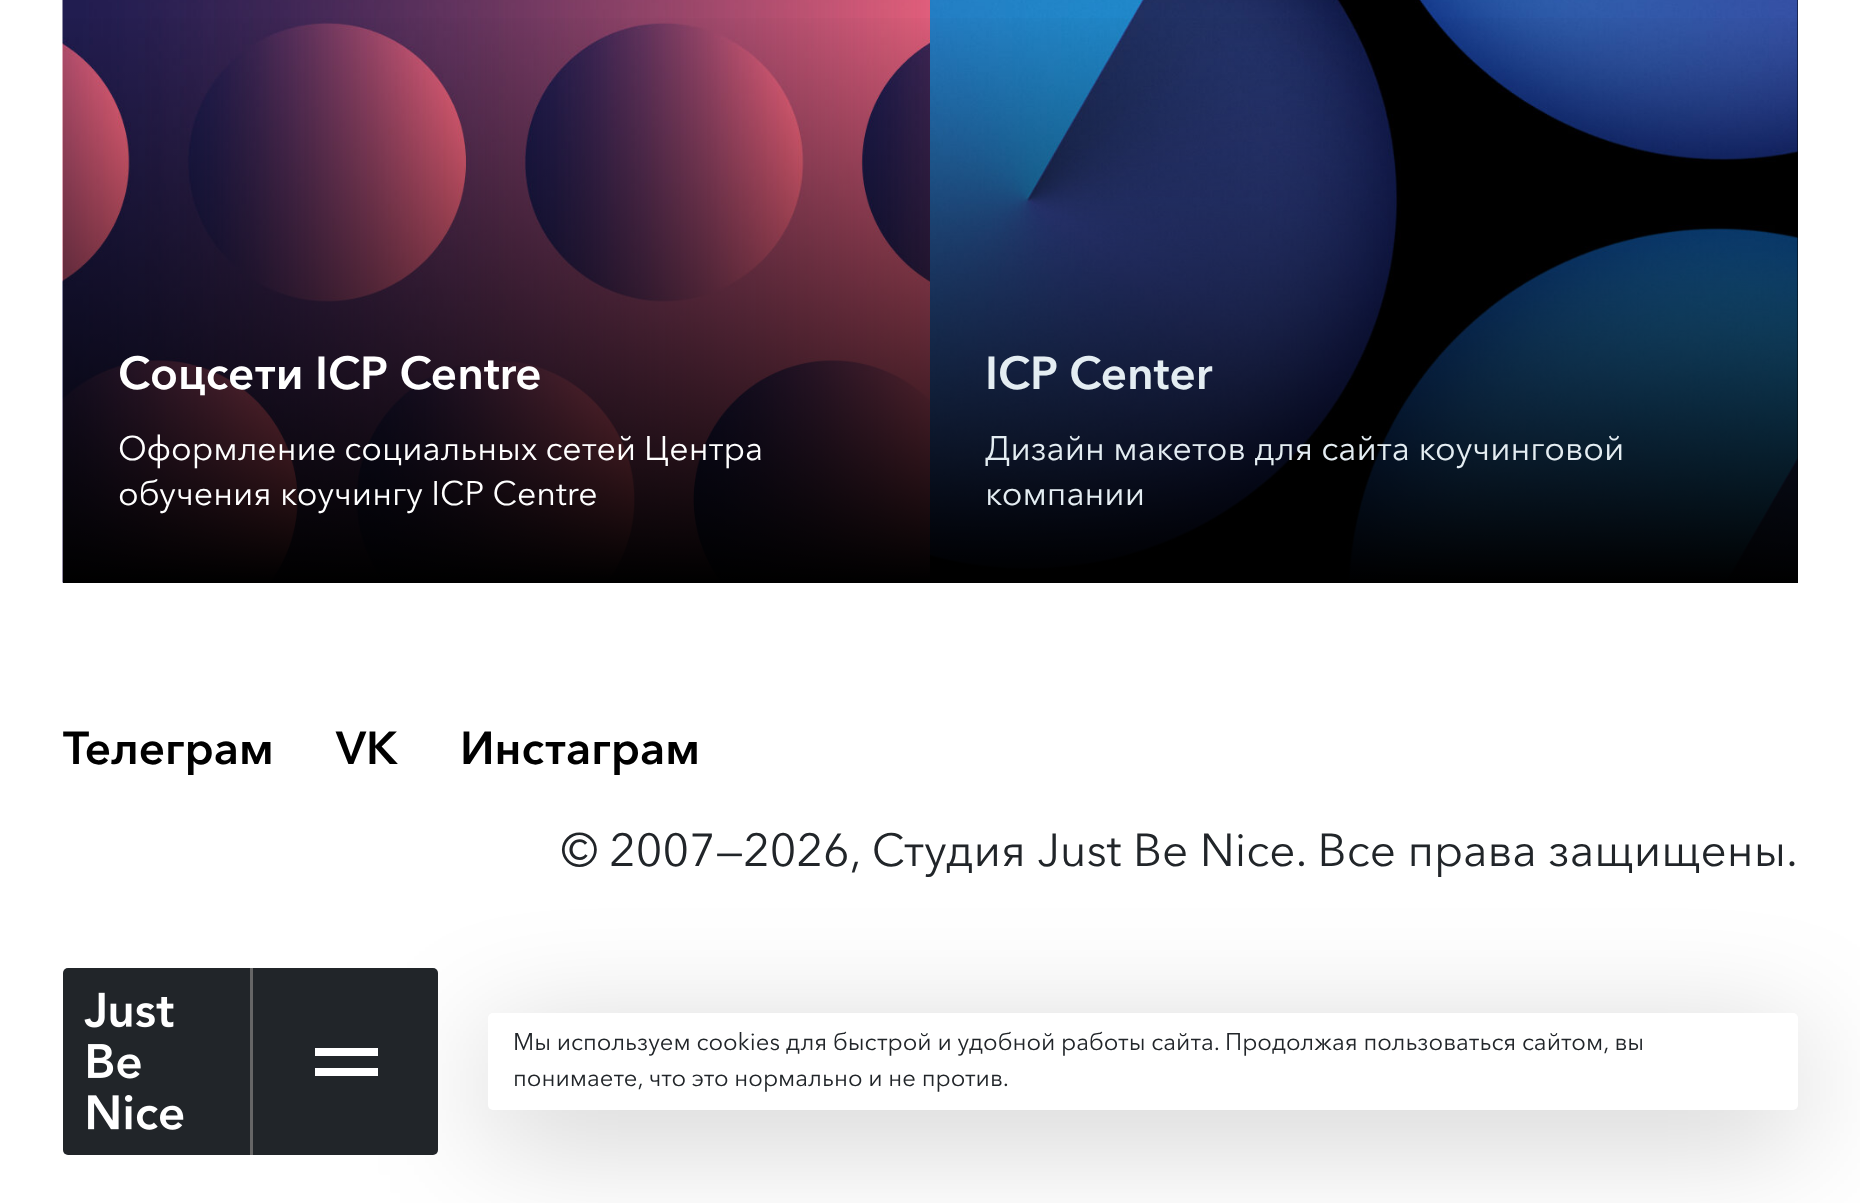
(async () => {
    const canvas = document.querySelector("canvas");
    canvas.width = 1860;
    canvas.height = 1203;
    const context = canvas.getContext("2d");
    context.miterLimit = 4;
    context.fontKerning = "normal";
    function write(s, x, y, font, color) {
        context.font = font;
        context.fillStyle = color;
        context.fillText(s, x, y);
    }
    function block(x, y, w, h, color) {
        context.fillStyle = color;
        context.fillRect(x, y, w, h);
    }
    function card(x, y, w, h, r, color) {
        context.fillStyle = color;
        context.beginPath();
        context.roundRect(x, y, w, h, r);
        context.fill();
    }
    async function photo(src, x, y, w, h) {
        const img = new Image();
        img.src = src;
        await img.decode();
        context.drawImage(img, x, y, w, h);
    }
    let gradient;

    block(0, 0, 1860, 1203, "rgb(255, 255, 255)");
    await photo("media/1.png", 62, 0, 868, 583);
    gradient = context.createLinearGradient(496, 583, 496, -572);
    gradient.addColorStop(0, "rgb(0, 0, 0)");
    gradient.addColorStop(0.5, "rgba(0, 0, 0, 0)");
    context.fillStyle = gradient;
    context.fillRect(63, 18, 867, 565);
    write("Соцсети ICP Centre", 118, 389, "bold 45.9px Avenir Next", "rgb(255, 255, 255)");
    context.wordSpacing = "-0.5px";
    write("Оформление социальных сетей Центра", 118, 460, "33.9px Avenir Next", "rgb(255, 255, 255)");
    context.wordSpacing = "0px";
    write("обучения коучингу ICP Cеntre", 118, 505, "33.9px Avenir Next", "rgb(255, 255, 255)");
    block(1797, 0, 1, 580, "rgb(0, 0, 0)");
    await photo("media/2.png", 930, 0, 868, 580);
    gradient = context.createLinearGradient(1364, 583, 1364, -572);
    gradient.addColorStop(0, "rgb(0, 0, 0)");
    gradient.addColorStop(0.5, "rgba(0, 0, 0, 0)");
    context.fillStyle = gradient;
    context.fillRect(930, 18, 868, 565);
    write("ICP Center", 985, 389, "bold 45.9px Avenir Next", "rgb(228, 237, 242)");
    write("Дизайн макетов для сайта коучинговой", 985, 460, "33.9px Avenir Next", "rgb(228, 237, 242)");
    write("компании", 985, 505, "33.9px Avenir Next", "rgb(228, 237, 242)");
    write("Телеграм", 63, 764, "bold 45.9px Avenir Next", "rgb(0, 0, 0)");
    write("VK", 336, 764, "bold 45.9px Avenir Next", "rgb(0, 0, 0)");
    write("Инстаграм", 460, 764, "bold 45.9px Avenir Next", "rgb(0, 0, 0)");
    write("© 2007—2026, Студия Just Be Nice. Все права защищены.", 561, 866, "45.9px Avenir Next", "rgb(33, 37, 41)");
    context.beginPath();
    context.roundRect(63, 968, 187, 187, [5, 0, 0, 5]);
    context.fill();
    await photo("media/3.png", 84, 992, 100, 138);
    context.fillStyle = "rgba(0, 0, 0, 0.2)";
    context.filter = "blur(62.5px)";
    context.beginPath();
    context.roundRect(488, 1038, 1310, 97, 5);
    context.fill();
    context.filter = "none";
    context.fillStyle = "rgb(33, 37, 41)";
    context.beginPath();
    context.roundRect(250, 968, 188, 187, [0, 5, 5, 0]);
    context.fill();
    block(250, 968, 3, 187, "rgb(102, 102, 102)");
    block(315, 1048, 63, 8, "rgb(255, 255, 255)");
    block(315, 1068, 63, 8, "rgb(255, 255, 255)");
    card(488, 1013, 1310, 97, 5, "rgb(255, 255, 255)");
    context.wordSpacing = "-0.25px";
    write("Мы используем cookies для быстрой и удобной работы сайта. Продолжая пользоваться сайтом, вы", 513, 1050, "23.9px Avenir Next", "rgb(33, 37, 41)");
    write("понимаете, что это нормально и не против.", 513, 1086, "23.9px Avenir Next", "rgb(33, 37, 41)");
})();
